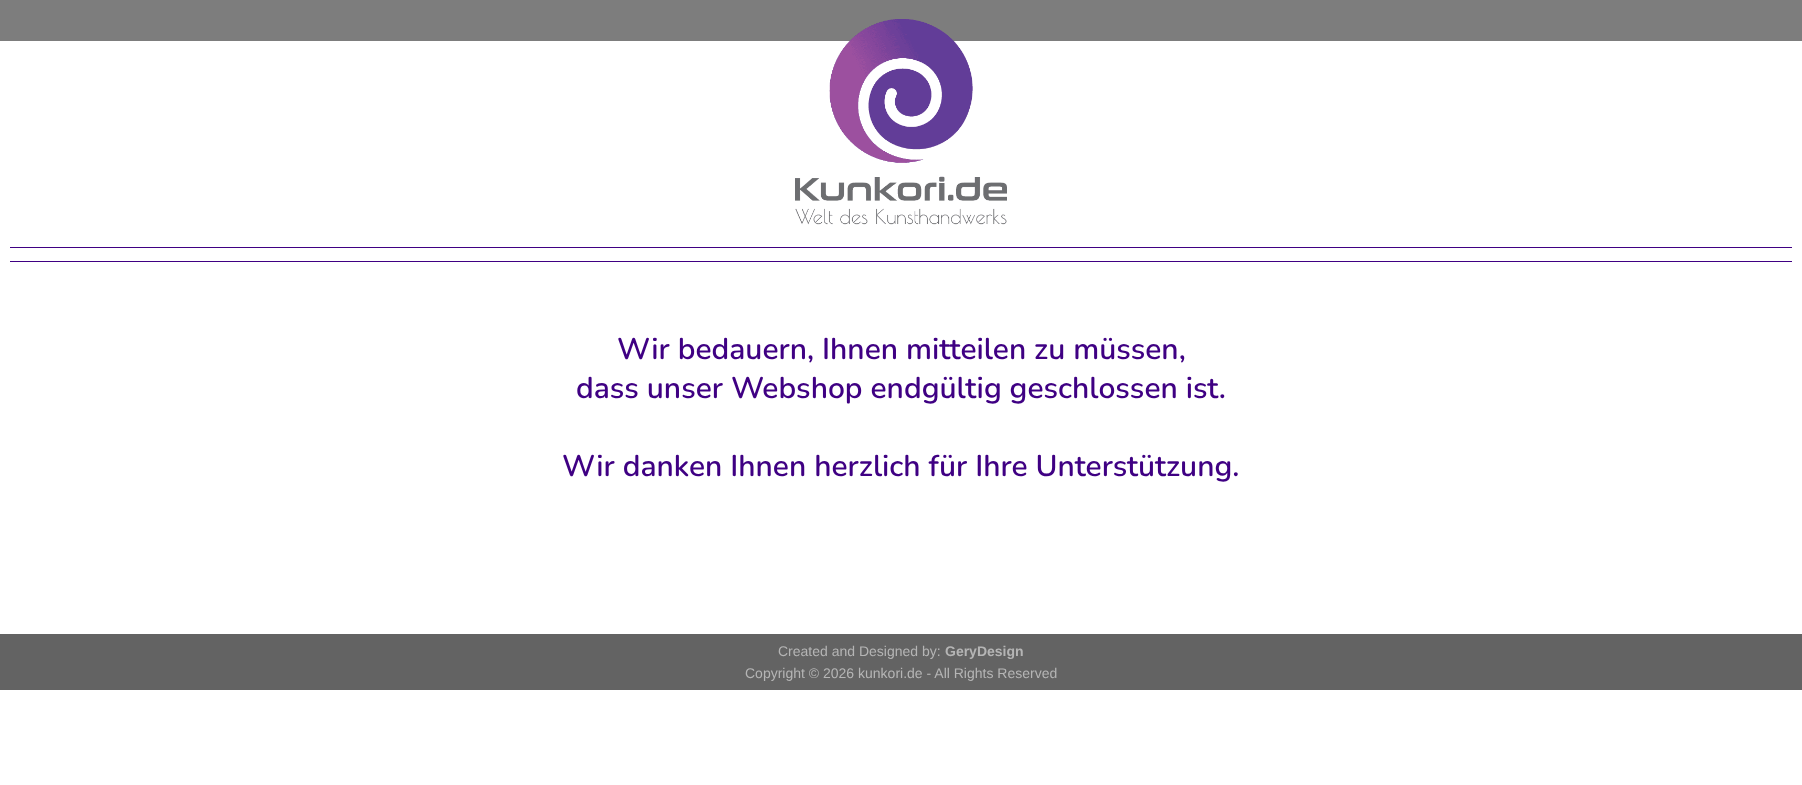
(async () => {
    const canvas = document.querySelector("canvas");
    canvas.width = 1802;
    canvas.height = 785;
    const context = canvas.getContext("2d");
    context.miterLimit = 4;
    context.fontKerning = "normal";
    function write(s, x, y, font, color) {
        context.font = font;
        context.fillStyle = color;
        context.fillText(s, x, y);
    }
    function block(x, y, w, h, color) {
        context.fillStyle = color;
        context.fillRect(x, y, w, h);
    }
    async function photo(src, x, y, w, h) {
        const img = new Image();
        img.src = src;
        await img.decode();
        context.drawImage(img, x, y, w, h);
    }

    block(0, 0, 1802, 785, "rgb(255, 255, 255)");
    block(0, 0, 1802, 41, "rgb(125, 125, 125)");
    await photo("media/1.png", 795, 19, 212, 206);
    block(10, 247, 1782, 1, "rgb(63, 0, 131)");
    block(10, 261, 1782, 1, "rgb(63, 0, 131)");
    write("Wir bedauern, Ihnen mitteilen zu müssen,", 617, 359, "600 30px Nunito", "rgb(63, 0, 131)");
    write("dass unser Webshop endgültig geschlossen ist.", 576, 398, "600 30px Nunito", "rgb(63, 0, 131)");
    write("Wir danken Ihnen herzlich für Ihre Unterstützung.", 562, 476, "600 30px Nunito", "rgb(63, 0, 131)");
    block(0, 634, 1802, 56, "rgb(99, 99, 99)");
    write("Created and Designed by:", 778, 656, "14px Liberation Sans", "rgb(181, 181, 181)");
    write("GeryDesign", 945, 656, "bold 14px Liberation Sans", "rgb(181, 181, 181)");
    write("Copyright © 2026 kunkori.de - All Rights Reserved", 745, 678, "14px Liberation Sans", "rgb(181, 181, 181)");
})();
